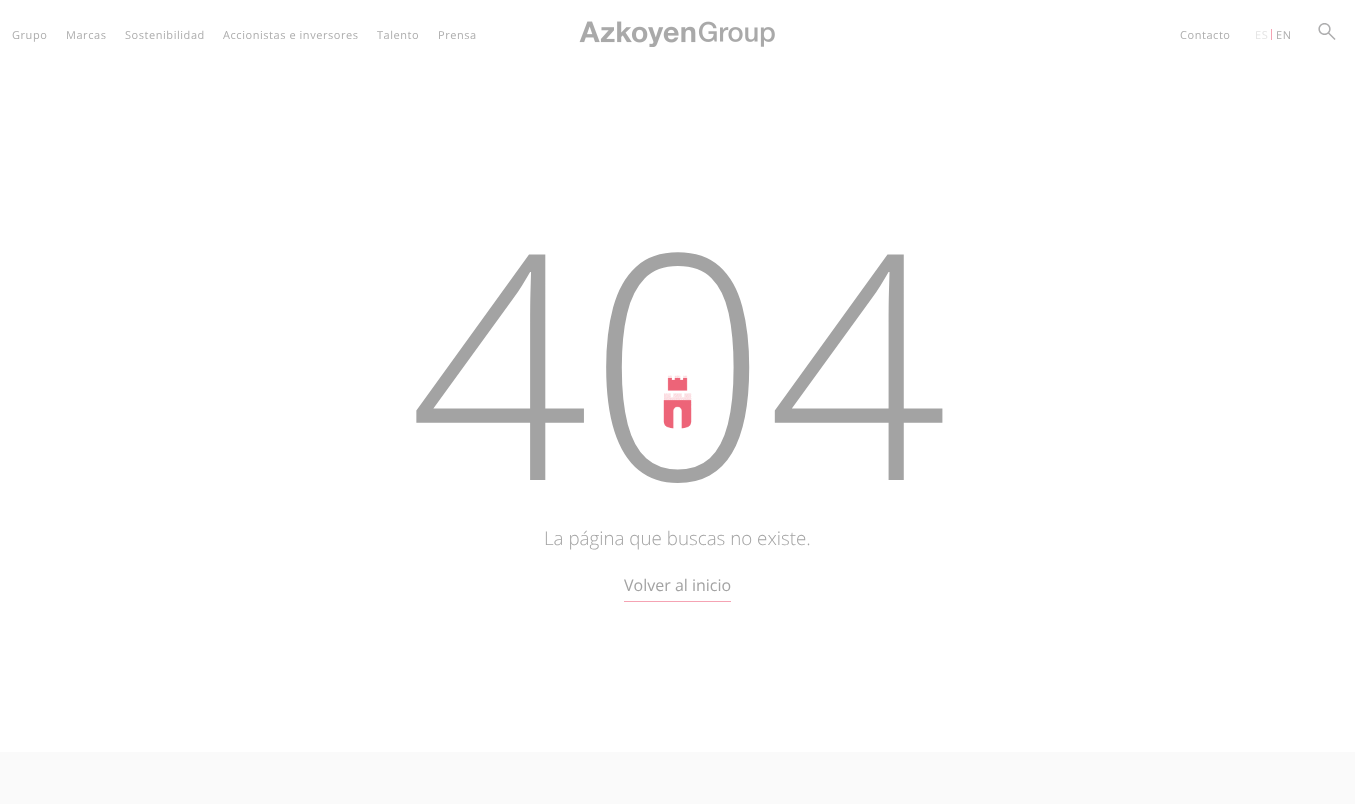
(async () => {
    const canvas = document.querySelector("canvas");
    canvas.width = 1355;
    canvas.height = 804;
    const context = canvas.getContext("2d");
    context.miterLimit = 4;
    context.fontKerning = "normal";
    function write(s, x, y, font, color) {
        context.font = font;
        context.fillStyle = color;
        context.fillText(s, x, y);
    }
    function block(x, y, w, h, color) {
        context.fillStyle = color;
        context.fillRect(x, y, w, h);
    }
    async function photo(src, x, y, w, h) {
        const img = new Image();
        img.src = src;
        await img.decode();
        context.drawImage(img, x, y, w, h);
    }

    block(0, 0, 1355, 804, "rgb(255, 255, 255)");
    context.letterSpacing = "0.55px";
    write("Grupo", 12, 39, "11px Open Sans", "rgb(173, 173, 173)");
    write("Marcas", 66, 39, "11px Open Sans", "rgb(173, 173, 173)");
    write("Sostenibilidad", 125, 39, "11px Open Sans", "rgb(173, 173, 173)");
    write("Accionistas e inversores", 223, 39, "11px Open Sans", "rgb(173, 173, 173)");
    write("Talento", 377, 39, "11px Open Sans", "rgb(173, 173, 173)");
    write("Prensa", 438, 39, "11px Open Sans", "rgb(173, 173, 173)");
    await photo("media/1.png", 579, 21, 196, 26);
    write("Contacto", 1180, 39, "11px Open Sans", "rgb(173, 173, 173)");
    write("ES", 1255, 39, "11px Open Sans", "rgb(228, 228, 228)");
    block(1271, 29, 1, 11, "rgb(245, 163, 179)");
    write("EN", 1276, 39, "11px Open Sans", "rgb(173, 173, 173)");
    await photo("media/2.png", 1318, 23, 18, 17);
    context.letterSpacing = "0px";
    write("404", 409, 480, "300 314px Open Sans", "rgb(163, 163, 163)");
    write("La página que buscas no existe.", 544, 545, "300 18.75px Open Sans", "rgb(163, 163, 163)");
    write("Volver al inicio", 624, 591, "16px Open Sans", "rgb(163, 163, 163)");
    block(624, 601, 107, 1, "rgb(245, 163, 179)");
    block(0, 752, 1355, 52, "rgb(250, 250, 250)");
    await photo("media/3.png", 663, 375, 29, 54);
})();
